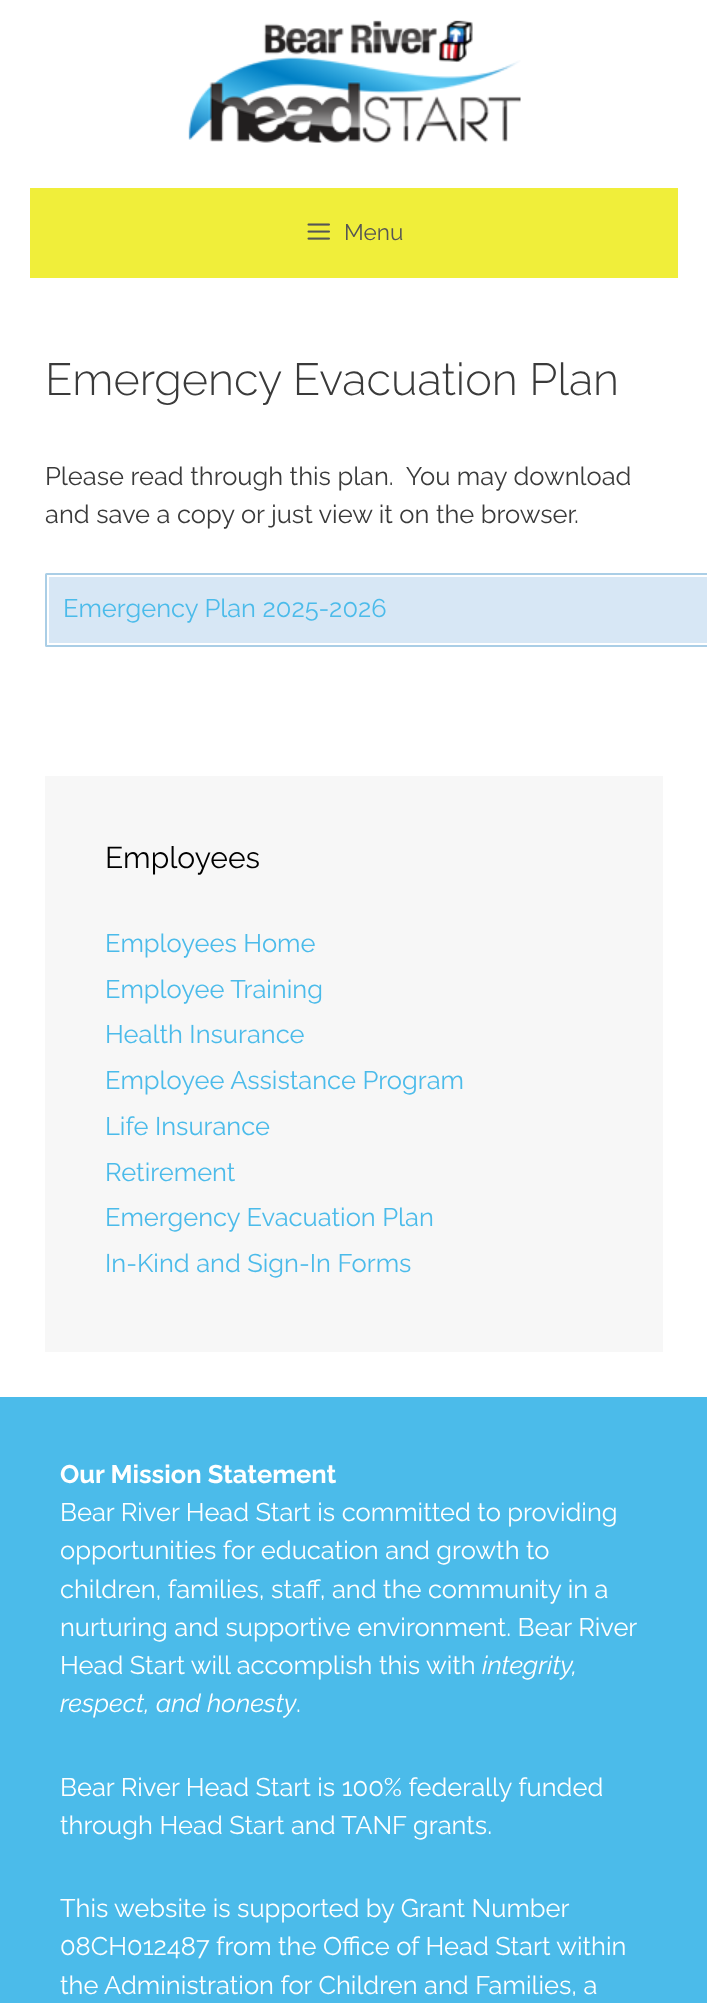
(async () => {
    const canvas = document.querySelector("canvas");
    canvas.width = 707;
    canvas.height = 2003;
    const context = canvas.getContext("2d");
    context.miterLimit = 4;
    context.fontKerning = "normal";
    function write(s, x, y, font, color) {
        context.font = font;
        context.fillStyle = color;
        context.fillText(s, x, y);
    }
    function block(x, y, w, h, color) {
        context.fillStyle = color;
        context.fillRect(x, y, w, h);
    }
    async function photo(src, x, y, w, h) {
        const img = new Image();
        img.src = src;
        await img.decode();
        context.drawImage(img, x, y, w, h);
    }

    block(0, 0, 707, 2003, "rgb(255, 255, 255)");
    await photo("media/1.png", 188, 20, 333, 123);
    block(30, 188, 648, 90, "rgb(240, 238, 58)");
    await photo("media/2.png", 307, 223, 23, 17);
    write("Menu", 344, 240, "22.5px Raleway", "rgb(85, 85, 85)");
    write("Emergency Evacuation Plan", 45, 395, "300 45px Raleway", "rgb(58, 58, 58)");
    write("Please read through this plan.  You may download", 45, 485, "25.5px Raleway", "rgb(58, 58, 58)");
    write("and save a copy or just view it on the browser.", 45, 523, "25.5px Raleway", "rgb(58, 58, 58)");
    context.fillStyle = "rgb(215, 231, 245)";
    context.beginPath();
    context.roundRect(46, 574, 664, 72, 0.5);
    context.fill();
    context.strokeStyle = "rgb(170, 206, 230)";
    context.lineWidth = 2;
    context.stroke();
    context.strokeStyle = "rgb(255, 255, 255)";
    context.strokeRect(48, 576, 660, 68);
    write("Emergency Plan 2025-2026", 63, 617, "25.5px Raleway", "rgb(75, 187, 234)");
    block(45, 776, 618, 576, "rgb(247, 247, 247)");
    write("Employees", 105, 868, "30px Raleway", "rgb(0, 0, 0)");
    write("Employees Home", 105, 952, "25.5px Raleway", "rgb(75, 187, 234)");
    write("Employee Training", 105, 998, "25.5px Raleway", "rgb(75, 187, 234)");
    write("Health Insurance", 105, 1043, "25.5px Raleway", "rgb(75, 187, 234)");
    write("Employee Assistance Program", 105, 1089, "25.5px Raleway", "rgb(75, 187, 234)");
    write("Life Insurance", 105, 1135, "25.5px Raleway", "rgb(75, 187, 234)");
    write("Retirement", 105, 1181, "25.5px Raleway", "rgb(75, 187, 234)");
    write("Emergency Evacuation Plan", 105, 1226, "25.5px Raleway", "rgb(75, 187, 234)");
    write("In-Kind and Sign-In Forms", 105, 1272, "25.5px Raleway", "rgb(75, 187, 234)");
    block(0, 1397, 707, 606, "rgb(75, 187, 234)");
    write("Our Mission Statement", 60, 1483, "bold 25.5px Raleway", "rgb(255, 255, 255)");
    write("Bear River Head Start is committed to providing", 60, 1521, "25.5px Raleway", "rgb(255, 255, 255)");
    write("opportunities for education and growth to", 60, 1559, "25.5px Raleway", "rgb(255, 255, 255)");
    write("children, families, staff, and the community in a", 60, 1598, "25.5px Raleway", "rgb(255, 255, 255)");
    write("nurturing and supportive environment. Bear River", 60, 1636, "25.5px Raleway", "rgb(255, 255, 255)");
    write("Head Start will accomplish this with", 60, 1674, "25.5px Raleway", "rgb(255, 255, 255)");
    write("integrity,", 482, 1674, "italic 25.5px Raleway", "rgb(255, 255, 255)");
    write("respect, and honesty", 60, 1712, "italic 25.5px Raleway", "rgb(255, 255, 255)");
    write(".", 296, 1712, "25.5px Raleway", "rgb(255, 255, 255)");
    write("Bear River Head Start is 100% federally funded", 60, 1796, "25.5px Raleway", "rgb(255, 255, 255)");
    write("through Head Start and TANF grants.", 60, 1834, "25.5px Raleway", "rgb(255, 255, 255)");
    write("This website is supported by Grant Number", 60, 1917, "25.5px Raleway", "rgb(255, 255, 255)");
    write("08CH012487", 60, 1955, "25.5px Raleway", "rgb(255, 255, 255)");
    write("from the Office of Head Start within", 216, 1955, "25.5px Raleway", "rgb(255, 255, 255)");
    write("the Administration for Children and Families, a", 60, 1994, "25.5px Raleway", "rgb(255, 255, 255)");
})();
